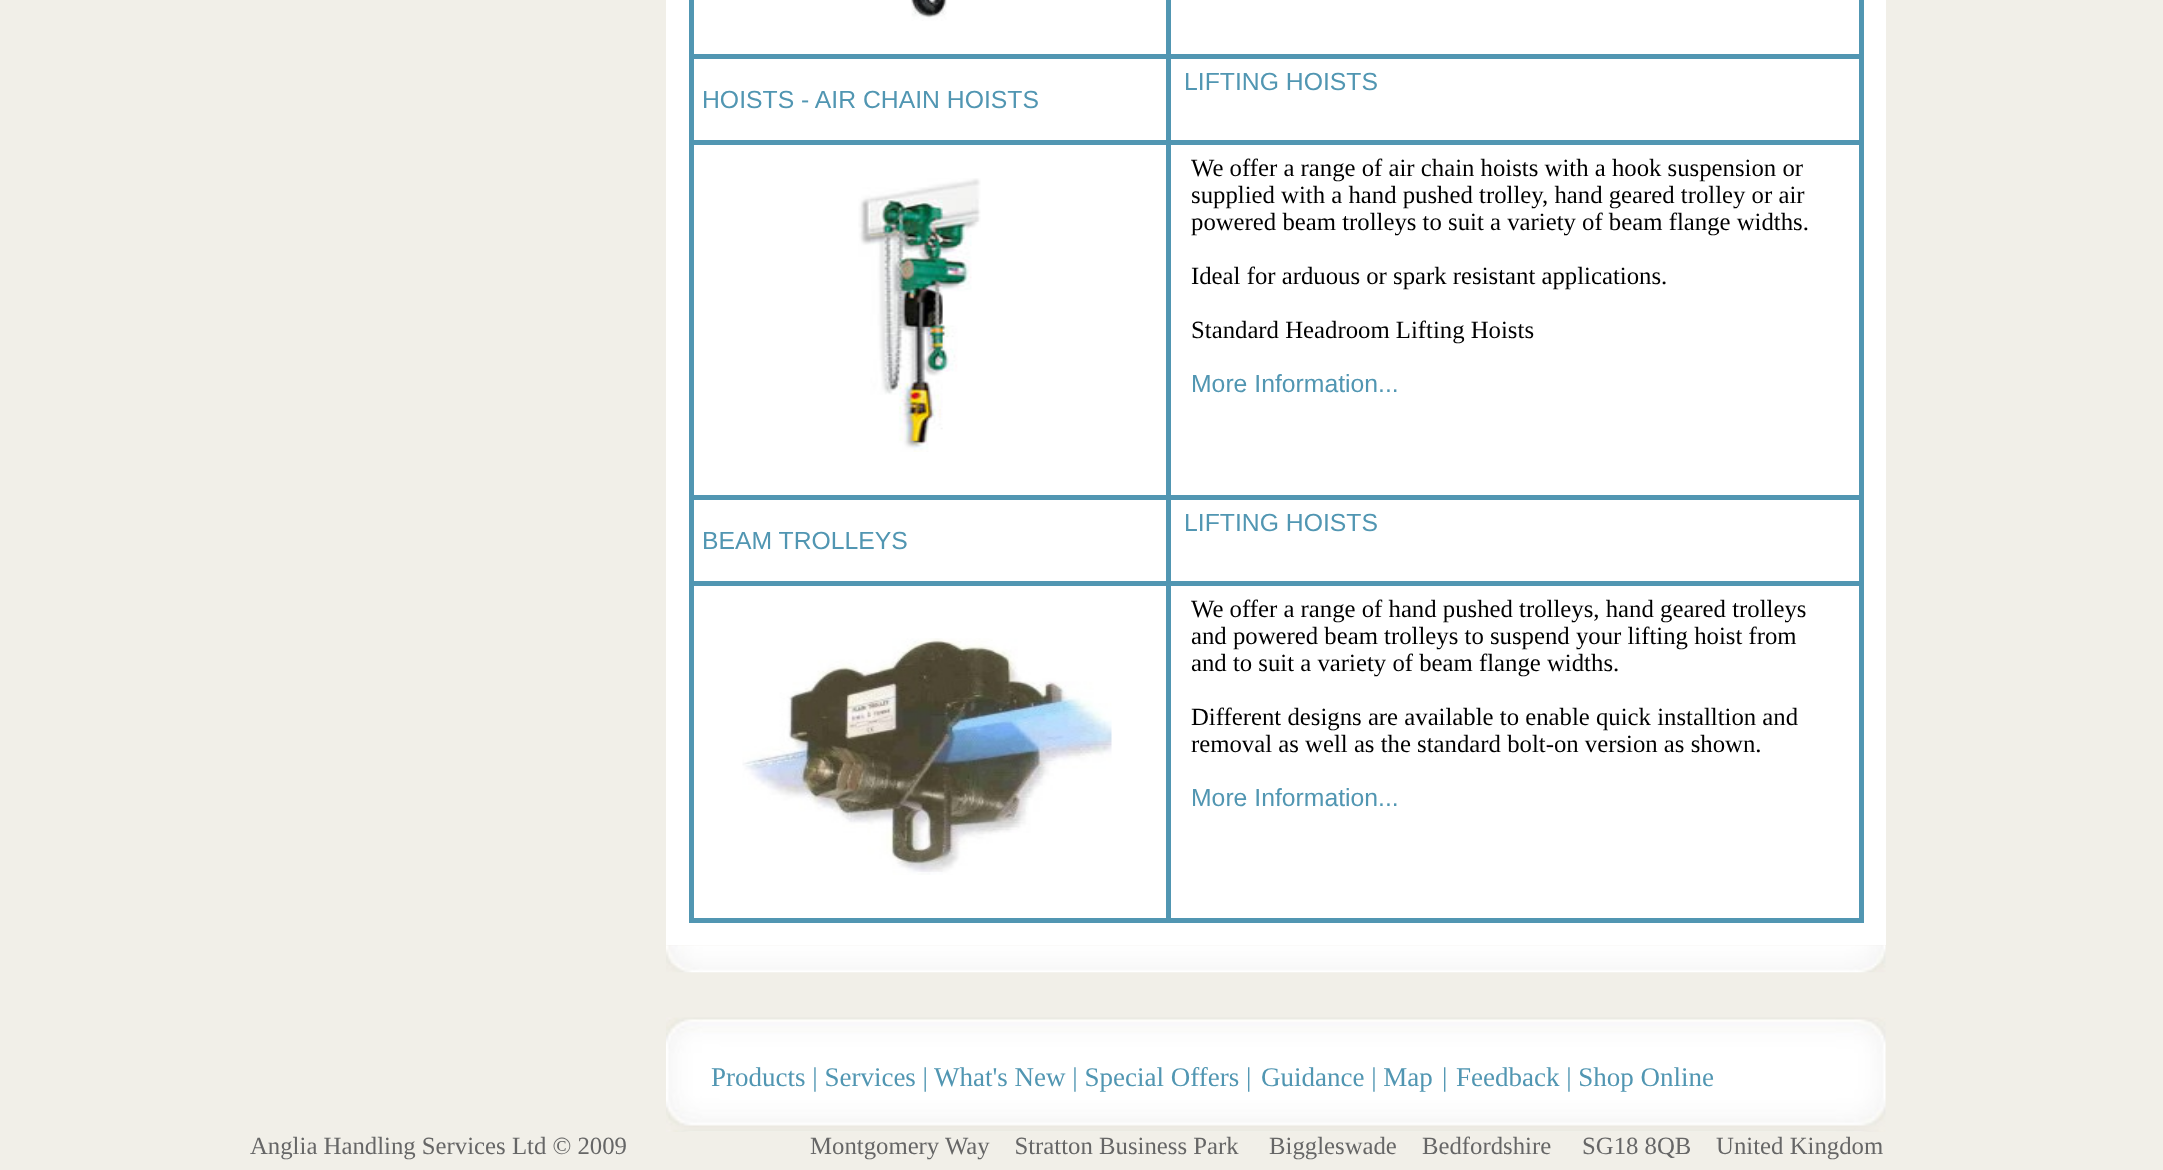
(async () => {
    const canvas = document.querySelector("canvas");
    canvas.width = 2163;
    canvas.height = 1170;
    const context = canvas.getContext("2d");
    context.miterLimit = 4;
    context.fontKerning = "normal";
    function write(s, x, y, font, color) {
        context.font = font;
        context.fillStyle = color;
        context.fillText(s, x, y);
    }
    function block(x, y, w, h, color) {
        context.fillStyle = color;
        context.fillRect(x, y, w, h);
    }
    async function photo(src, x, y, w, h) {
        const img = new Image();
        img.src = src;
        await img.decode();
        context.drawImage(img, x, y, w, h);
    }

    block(0, 0, 2163, 1170, "rgb(241, 239, 232)");
    block(666, 0, 1220, 945, "rgb(255, 255, 255)");
    block(1859, 0, 5, 923, "rgb(81, 150, 178)");
    block(1166, 918, 697, 5, "rgb(81, 150, 178)");
    block(1166, 581, 5, 342, "rgb(81, 150, 178)");
    block(1166, 581, 697, 5, "rgb(81, 150, 178)");
    block(1166, 495, 5, 90, "rgb(81, 150, 178)");
    block(1166, 495, 697, 5, "rgb(81, 150, 178)");
    block(1166, 140, 5, 360, "rgb(81, 150, 178)");
    block(1166, 140, 697, 5, "rgb(81, 150, 178)");
    block(1166, 54, 5, 90, "rgb(81, 150, 178)");
    block(1166, 54, 697, 5, "rgb(81, 150, 178)");
    block(1166, 0, 5, 59, "rgb(81, 150, 178)");
    block(689, 918, 481, 5, "rgb(81, 150, 178)");
    block(689, 581, 5, 342, "rgb(81, 150, 178)");
    block(689, 581, 481, 5, "rgb(81, 150, 178)");
    block(689, 495, 5, 90, "rgb(81, 150, 178)");
    block(689, 495, 481, 5, "rgb(81, 150, 178)");
    block(689, 140, 5, 360, "rgb(81, 150, 178)");
    block(689, 140, 481, 5, "rgb(81, 150, 178)");
    block(689, 54, 5, 90, "rgb(81, 150, 178)");
    block(689, 54, 481, 5, "rgb(81, 150, 178)");
    block(689, 0, 5, 59, "rgb(81, 150, 178)");
    await photo("media/1.png", 911, 0, 36, 21);
    write("LIFTING HOISTS", 1184, 90, "24.75px Liberation Sans", "rgb(81, 150, 178)");
    write("HOISTS - AIR CHAIN HOISTS", 702, 108, "24.75px Liberation Sans", "rgb(81, 150, 178)");
    await photo("media/2.png", 858, 178, 123, 274);
    write("We offer a range of air chain hoists with a hook suspension or", 1191, 176, "24.75px Liberation Serif", "rgb(0, 0, 0)");
    write("supplied with a hand pushed trolley, hand geared trolley or air", 1191, 203, "24.75px Liberation Serif", "rgb(0, 0, 0)");
    write("powered beam trolleys to suit a variety of beam flange widths.", 1191, 230, "24.75px Liberation Serif", "rgb(0, 0, 0)");
    write("Ideal for arduous or spark resistant applications.", 1191, 284, "24.75px Liberation Serif", "rgb(0, 0, 0)");
    write("Standard Headroom Lifting Hoists", 1191, 338, "24.75px Liberation Serif", "rgb(0, 0, 0)");
    write("More Information...", 1191, 392, "24.75px Liberation Sans", "rgb(81, 150, 178)");
    write("LIFTING HOISTS", 1184, 531, "24.75px Liberation Sans", "rgb(81, 150, 178)");
    write("BEAM TROLLEYS", 702, 549, "24.75px Liberation Sans", "rgb(81, 150, 178)");
    await photo("media/3.png", 742, 638, 370, 237);
    write("We offer a range of hand pushed trolleys, hand geared trolleys", 1191, 617, "24.75px Liberation Serif", "rgb(0, 0, 0)");
    write("and powered beam trolleys to suspend your lifting hoist from", 1191, 644, "24.75px Liberation Serif", "rgb(0, 0, 0)");
    write("and to suit a variety of beam flange widths.", 1191, 671, "24.75px Liberation Serif", "rgb(0, 0, 0)");
    write("Different designs are available to enable quick installtion and", 1191, 725, "24.75px Liberation Serif", "rgb(0, 0, 0)");
    write("removal as well as the standard bolt-on version as shown.", 1191, 752, "24.75px Liberation Serif", "rgb(0, 0, 0)");
    write("More Information...", 1191, 806, "24.75px Liberation Sans", "rgb(81, 150, 178)");
    await photo("media/4.png", 666, 945, 1220, 28);
    await photo("media/5.png", 666, 1017, 1220, 115);
    write("Products | Services |", 711, 1086, "27px Liberation Serif", "rgb(81, 150, 178)");
    write("What's New | Special Offers |", 934, 1086, "27px Liberation Serif", "rgb(81, 150, 178)");
    write("Guidance | Map", 1261, 1086, "27px Liberation Serif", "rgb(81, 150, 178)");
    write("|", 1442, 1086, "27px Liberation Serif", "rgb(81, 150, 178)");
    write("Feedback | Shop Online", 1456, 1086, "27px Liberation Serif", "rgb(81, 150, 178)");
    write("Anglia Handling Services Ltd © 2009", 250, 1154, "24.75px Liberation Serif", "rgb(102, 102, 102)");
    write("Montgomery Way    Stratton Business Park", 810, 1154, "24.75px Liberation Serif", "rgb(102, 102, 102)");
    write("Biggleswade", 1269, 1154, "24.75px Liberation Serif", "rgb(102, 102, 102)");
    write("Bedfordshire", 1422, 1154, "24.75px Liberation Serif", "rgb(102, 102, 102)");
    write("SG18 8QB    United Kingdom", 1582, 1154, "24.75px Liberation Serif", "rgb(102, 102, 102)");
})();
